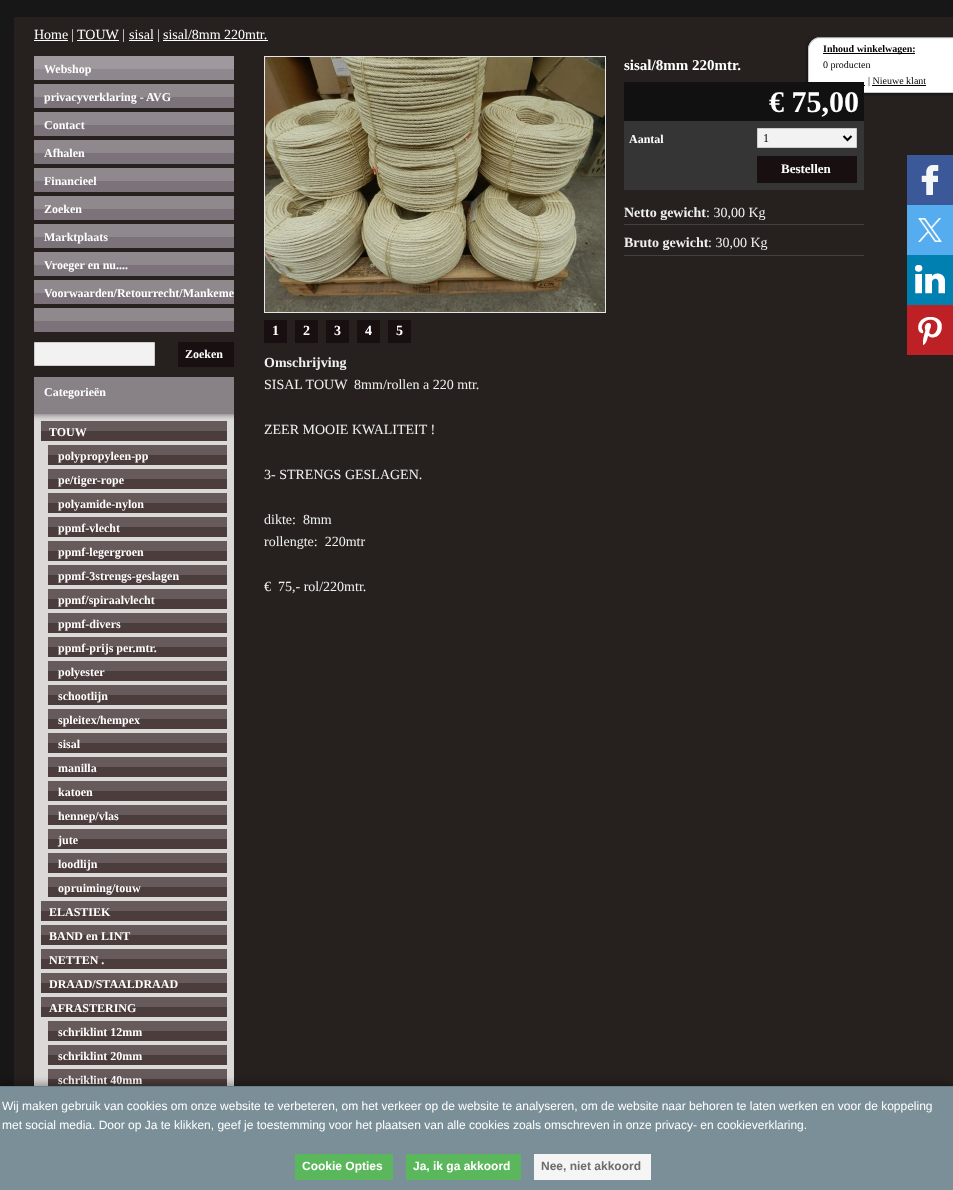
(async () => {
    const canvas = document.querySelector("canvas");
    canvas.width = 953;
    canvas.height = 1190;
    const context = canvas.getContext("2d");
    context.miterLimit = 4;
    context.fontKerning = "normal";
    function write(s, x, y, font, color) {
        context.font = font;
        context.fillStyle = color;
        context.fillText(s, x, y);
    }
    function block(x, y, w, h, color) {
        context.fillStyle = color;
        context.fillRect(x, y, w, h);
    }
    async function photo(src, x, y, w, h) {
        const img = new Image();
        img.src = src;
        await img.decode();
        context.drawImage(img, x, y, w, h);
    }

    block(0, 0, 953, 1190, "rgb(23, 23, 23)");
    block(14, 17, 939, 1069, "rgb(38, 33, 30)");
    write("Home", 34, 39, "14px Liberation Serif", "rgb(255, 255, 255)");
    block(34, 40, 34, 1, "rgb(255, 255, 255)");
    write("|", 71, 39, "14px Liberation Serif", "rgb(240, 240, 240)");
    write("TOUW", 77, 39, "14px Liberation Serif", "rgb(255, 255, 255)");
    block(77, 40, 42, 1, "rgb(255, 255, 255)");
    write("|", 122, 39, "14px Liberation Serif", "rgb(240, 240, 240)");
    write("sisal", 129, 39, "14px Liberation Serif", "rgb(255, 255, 255)");
    block(129, 40, 24, 1, "rgb(255, 255, 255)");
    write("|", 157, 39, "14px Liberation Serif", "rgb(240, 240, 240)");
    write("sisal/8mm 220mtr.", 163, 39, "14px Liberation Serif", "rgb(255, 255, 255)");
    block(163, 40, 105, 1, "rgb(255, 255, 255)");
    block(34, 56, 200, 24, "rgb(123, 115, 121)");
    await photo("media/1.png", 34, 56, 200, 24);
    write("Webshop", 44, 73, "bold 12px Liberation Serif", "rgb(255, 255, 255)");
    block(34, 97, 200, 11, "rgb(123, 115, 121)");
    block(34, 84, 200, 13, "rgb(143, 136, 141)");
    write("privacyverklaring - AVG", 44, 101, "bold 12px Liberation Serif", "rgb(255, 255, 255)");
    block(34, 125, 200, 11, "rgb(123, 115, 121)");
    block(34, 112, 200, 13, "rgb(143, 136, 141)");
    write("Contact", 44, 129, "bold 12px Liberation Serif", "rgb(255, 255, 255)");
    block(34, 153, 200, 11, "rgb(123, 115, 121)");
    block(34, 140, 200, 13, "rgb(143, 136, 141)");
    write("Afhalen", 44, 157, "bold 12px Liberation Serif", "rgb(255, 255, 255)");
    block(34, 181, 200, 11, "rgb(123, 115, 121)");
    block(34, 168, 200, 13, "rgb(143, 136, 141)");
    write("Financieel", 44, 185, "bold 12px Liberation Serif", "rgb(255, 255, 255)");
    block(34, 209, 200, 11, "rgb(123, 115, 121)");
    block(34, 196, 200, 13, "rgb(143, 136, 141)");
    write("Zoeken", 44, 213, "bold 12px Liberation Serif", "rgb(255, 255, 255)");
    block(34, 237, 200, 11, "rgb(123, 115, 121)");
    block(34, 224, 200, 13, "rgb(143, 136, 141)");
    write("Marktplaats", 44, 241, "bold 12px Liberation Serif", "rgb(255, 255, 255)");
    block(34, 265, 200, 11, "rgb(123, 115, 121)");
    block(34, 252, 200, 13, "rgb(143, 136, 141)");
    write("Vroeger en nu....", 44, 269, "bold 12px Liberation Serif", "rgb(255, 255, 255)");
    block(34, 293, 200, 11, "rgb(123, 115, 121)");
    block(34, 280, 200, 13, "rgb(143, 136, 141)");
    write("Voorwaarden/Retourrecht/Mankeme", 44, 297, "bold 12px Liberation Serif", "rgb(255, 255, 255)");
    block(34, 321, 200, 11, "rgb(123, 115, 121)");
    block(34, 308, 200, 13, "rgb(143, 136, 141)");
    context.fillStyle = "rgb(242, 242, 242)";
    context.beginPath();
    context.rect(34.5, 342.5, 120, 23);
    context.fill();
    context.strokeStyle = "rgb(204, 204, 204)";
    context.stroke();
    block(178, 342, 56, 25, "rgb(23, 15, 16)");
    write("Zoeken", 185, 358, "bold 12px Liberation Serif", "rgb(255, 255, 255)");
    block(34, 414, 200, 672, "rgb(219, 216, 216)");
    await photo("media/2.png", 34, 414, 200, 6);
    block(34, 377, 200, 37, "rgb(136, 129, 134)");
    write("Categorieën", 44, 396, "bold 12px Liberation Serif", "rgb(255, 255, 255)");
    block(41, 431, 186, 10, "rgb(76, 61, 61)");
    block(41, 421, 186, 10, "rgb(103, 90, 90)");
    write("TOUW", 49, 436, "bold 12px Liberation Serif", "rgb(255, 255, 255)");
    block(48, 455, 179, 10, "rgb(76, 61, 61)");
    block(48, 445, 179, 10, "rgb(103, 90, 90)");
    write("polypropyleen-pp", 58, 460, "bold 12px Liberation Serif", "rgb(255, 255, 255)");
    block(48, 479, 179, 10, "rgb(76, 61, 61)");
    block(48, 469, 179, 10, "rgb(103, 90, 90)");
    write("pe/tiger-rope", 58, 484, "bold 12px Liberation Serif", "rgb(255, 255, 255)");
    block(48, 503, 179, 10, "rgb(76, 61, 61)");
    block(48, 493, 179, 10, "rgb(103, 90, 90)");
    write("polyamide-nylon", 58, 508, "bold 12px Liberation Serif", "rgb(255, 255, 255)");
    block(48, 527, 179, 10, "rgb(76, 61, 61)");
    block(48, 517, 179, 10, "rgb(103, 90, 90)");
    write("ppmf-vlecht", 58, 532, "bold 12px Liberation Serif", "rgb(255, 255, 255)");
    block(48, 551, 179, 10, "rgb(76, 61, 61)");
    block(48, 541, 179, 10, "rgb(103, 90, 90)");
    write("ppmf-legergroen", 58, 556, "bold 12px Liberation Serif", "rgb(255, 255, 255)");
    block(48, 575, 179, 10, "rgb(76, 61, 61)");
    block(48, 565, 179, 10, "rgb(103, 90, 90)");
    write("ppmf-3strengs-geslagen", 58, 580, "bold 12px Liberation Serif", "rgb(255, 255, 255)");
    block(48, 599, 179, 10, "rgb(76, 61, 61)");
    block(48, 589, 179, 10, "rgb(103, 90, 90)");
    write("ppmf/spiraalvlecht", 58, 604, "bold 12px Liberation Serif", "rgb(255, 255, 255)");
    block(48, 623, 179, 10, "rgb(76, 61, 61)");
    block(48, 613, 179, 10, "rgb(103, 90, 90)");
    write("ppmf-divers", 58, 628, "bold 12px Liberation Serif", "rgb(255, 255, 255)");
    block(48, 647, 179, 10, "rgb(76, 61, 61)");
    block(48, 637, 179, 10, "rgb(103, 90, 90)");
    write("ppmf-prijs per.mtr.", 58, 652, "bold 12px Liberation Serif", "rgb(255, 255, 255)");
    block(48, 671, 179, 10, "rgb(76, 61, 61)");
    block(48, 661, 179, 10, "rgb(103, 90, 90)");
    write("polyester", 58, 676, "bold 12px Liberation Serif", "rgb(255, 255, 255)");
    block(48, 695, 179, 10, "rgb(76, 61, 61)");
    block(48, 685, 179, 10, "rgb(103, 90, 90)");
    write("schootlijn", 58, 700, "bold 12px Liberation Serif", "rgb(255, 255, 255)");
    block(48, 719, 179, 10, "rgb(76, 61, 61)");
    block(48, 709, 179, 10, "rgb(103, 90, 90)");
    write("spleitex/hempex", 58, 724, "bold 12px Liberation Serif", "rgb(255, 255, 255)");
    block(48, 743, 179, 10, "rgb(76, 61, 61)");
    block(48, 733, 179, 10, "rgb(103, 90, 90)");
    write("sisal", 58, 748, "bold 12px Liberation Serif", "rgb(255, 255, 255)");
    block(48, 767, 179, 10, "rgb(76, 61, 61)");
    block(48, 757, 179, 10, "rgb(103, 90, 90)");
    write("manilla", 58, 772, "bold 12px Liberation Serif", "rgb(255, 255, 255)");
    block(48, 791, 179, 10, "rgb(76, 61, 61)");
    block(48, 781, 179, 10, "rgb(103, 90, 90)");
    write("katoen", 58, 796, "bold 12px Liberation Serif", "rgb(255, 255, 255)");
    block(48, 815, 179, 10, "rgb(76, 61, 61)");
    block(48, 805, 179, 10, "rgb(103, 90, 90)");
    write("hennep/vlas", 58, 820, "bold 12px Liberation Serif", "rgb(255, 255, 255)");
    block(48, 839, 179, 10, "rgb(76, 61, 61)");
    block(48, 829, 179, 10, "rgb(103, 90, 90)");
    write("jute", 58, 844, "bold 12px Liberation Serif", "rgb(255, 255, 255)");
    block(48, 863, 179, 10, "rgb(76, 61, 61)");
    block(48, 853, 179, 10, "rgb(103, 90, 90)");
    write("loodlijn", 58, 868, "bold 12px Liberation Serif", "rgb(255, 255, 255)");
    block(48, 887, 179, 10, "rgb(76, 61, 61)");
    block(48, 877, 179, 10, "rgb(103, 90, 90)");
    write("opruiming/touw", 58, 892, "bold 12px Liberation Serif", "rgb(255, 255, 255)");
    block(41, 911, 186, 10, "rgb(76, 61, 61)");
    block(41, 901, 186, 10, "rgb(103, 90, 90)");
    write("ELASTIEK", 49, 916, "bold 12px Liberation Serif", "rgb(255, 255, 255)");
    block(41, 935, 186, 10, "rgb(76, 61, 61)");
    block(41, 925, 186, 10, "rgb(103, 90, 90)");
    write("BAND en LINT", 49, 940, "bold 12px Liberation Serif", "rgb(255, 255, 255)");
    block(41, 959, 186, 10, "rgb(76, 61, 61)");
    block(41, 949, 186, 10, "rgb(103, 90, 90)");
    write("NETTEN .", 49, 964, "bold 12px Liberation Serif", "rgb(255, 255, 255)");
    block(41, 983, 186, 10, "rgb(76, 61, 61)");
    block(41, 973, 186, 10, "rgb(103, 90, 90)");
    write("DRAAD/STAALDRAAD", 49, 988, "bold 12px Liberation Serif", "rgb(255, 255, 255)");
    block(41, 1007, 186, 10, "rgb(76, 61, 61)");
    block(41, 997, 186, 10, "rgb(103, 90, 90)");
    write("AFRASTERING", 49, 1012, "bold 12px Liberation Serif", "rgb(255, 255, 255)");
    block(48, 1031, 179, 10, "rgb(76, 61, 61)");
    block(48, 1021, 179, 10, "rgb(103, 90, 90)");
    write("schriklint 12mm", 58, 1036, "bold 12px Liberation Serif", "rgb(255, 255, 255)");
    block(48, 1055, 179, 10, "rgb(76, 61, 61)");
    block(48, 1045, 179, 10, "rgb(103, 90, 90)");
    write("schriklint 20mm", 58, 1060, "bold 12px Liberation Serif", "rgb(255, 255, 255)");
    block(48, 1079, 179, 7, "rgb(76, 61, 61)");
    block(48, 1069, 179, 10, "rgb(103, 90, 90)");
    write("schriklint 40mm", 58, 1084, "bold 12px Liberation Serif", "rgb(255, 255, 255)");
    write("sisal/8mm 220mtr.", 624, 70, "bold 15px Liberation Serif", "rgb(255, 255, 255)");
    await photo("media/4.png", 805, 37, 148, 59);
    block(624, 82, 240, 39, "rgb(18, 17, 17)");
    write("€ 75,00", 769, 112, "bold 30px Liberation Serif", "rgb(255, 255, 255)");
    block(624, 121, 240, 69, "rgb(54, 53, 53)");
    write("Aantal", 629, 143, "bold 12px Liberation Serif", "rgb(255, 255, 255)");
    context.fillStyle = "rgb(242, 242, 242)";
    context.beginPath();
    context.rect(757.5, 128.5, 99, 19);
    context.fill();
    context.stroke();
    context.beginPath();
    context.moveTo(843.5, 136);
    context.lineTo(847.5, 140);
    context.lineTo(851.5, 136);
    context.strokeStyle = "rgb(0, 0, 0)";
    context.lineWidth = 2;
    context.stroke();
    write("1", 763, 142, "12px Liberation Serif", "rgb(0, 0, 0)");
    block(757, 156, 100, 27, "rgb(23, 15, 16)");
    write("Bestellen", 781, 173, "bold 13px Liberation Serif", "rgb(255, 255, 255)");
    block(624, 224, 240, 1, "rgb(65, 65, 65)");
    write("Netto gewicht", 624, 217, "bold 14px Liberation Serif", "rgb(240, 240, 240)");
    write(": 30,00 Kg", 706, 217, "14px Liberation Serif", "rgb(240, 240, 240)");
    block(624, 255, 240, 1, "rgb(65, 65, 65)");
    write("Bruto gewicht", 624, 247, "bold 14px Liberation Serif", "rgb(240, 240, 240)");
    write(": 30,00 Kg", 708, 247, "14px Liberation Serif", "rgb(240, 240, 240)");
    context.strokeStyle = "rgb(230, 230, 230)";
    context.lineWidth = 1;
    context.strokeRect(264.5, 56.5, 341, 256);
    await photo("media/3.png", 265, 57, 340, 255);
    block(264, 320, 23, 23, "rgb(23, 15, 16)");
    write("1", 272, 335, "bold 14px Liberation Serif", "rgb(255, 255, 255)");
    block(295, 320, 23, 23, "rgb(23, 15, 16)");
    write("2", 303, 335, "bold 14px Liberation Serif", "rgb(255, 255, 255)");
    block(326, 320, 23, 23, "rgb(23, 15, 16)");
    write("3", 334, 335, "bold 14px Liberation Serif", "rgb(255, 255, 255)");
    block(357, 320, 23, 23, "rgb(23, 15, 16)");
    write("4", 365, 335, "bold 14px Liberation Serif", "rgb(255, 255, 255)");
    block(388, 320, 23, 23, "rgb(23, 15, 16)");
    write("5", 396, 335, "bold 14px Liberation Serif", "rgb(255, 255, 255)");
    write("Omschrijving", 264, 367, "bold 14px Liberation Serif", "rgb(240, 240, 240)");
    write("SISAL TOUW  8mm/rollen a 220 mtr.", 264, 389, "14px Liberation Serif", "rgb(240, 240, 240)");
    write("ZEER MOOIE KWALITEIT !", 264, 434, "14px Liberation Serif", "rgb(240, 240, 240)");
    write("3- STRENGS GESLAGEN.", 264, 479, "14px Liberation Serif", "rgb(240, 240, 240)");
    write("dikte:  8mm", 264, 524, "14px Liberation Serif", "rgb(240, 240, 240)");
    write("rollengte:  220mtr", 264, 546, "14px Liberation Serif", "rgb(240, 240, 240)");
    write("€  75,- rol/220mtr.", 264, 591, "14px Liberation Serif", "rgb(240, 240, 240)");
    block(823, 53, 92, 1, "rgb(0, 0, 0)");
    write("Inhoud winkelwagen:", 823, 52, "bold 10px Liberation Serif", "rgb(0, 0, 0)");
    write("0 producten", 823, 68, "10px Liberation Serif", "rgb(0, 0, 0)");
    block(864, 85, 1, 1, "rgb(0, 0, 0)");
    write("| Nieuwe klant", 868, 84, "10px Liberation Serif", "rgb(0, 0, 0)");
    block(872, 85, 54, 1, "rgb(0, 0, 0)");
    block(907, 155, 46, 50, "rgb(59, 89, 152)");
    await photo("media/5.png", 921, 165, 18, 30);
    block(907, 205, 46, 50, "rgb(85, 172, 238)");
    await photo("media/6.png", 918, 218, 24, 24);
    block(907, 255, 46, 50, "rgb(0, 127, 177)");
    await photo("media/7.png", 915, 265, 30, 29);
    block(907, 305, 46, 50, "rgb(189, 33, 38)");
    await photo("media/8.png", 918, 317, 24, 28);
    context.fillStyle = "rgba(0, 0, 0, 0.3)";
    context.filter = "blur(3.5px)";
    context.beginPath();
    context.rect(0, 1083, 953, 104);
    context.fill();
    context.filter = "none";
    block(0, 1087, 953, 103, "rgb(122, 143, 152)");
    block(0, 1086, 953, 1, "rgb(105, 126, 135)");
    write("Wij maken gebruik van cookies om onze website te verbeteren, om het verkeer op de website te analyseren, om de website naar behoren te laten werken en voor de koppeling", 2, 1110, "12px Liberation Sans", "rgb(255, 255, 255)");
    write("met social media. Door op Ja te klikken, geef je toestemming voor het plaatsen van alle cookies zoals omschreven in onze privacy- en cookieverklaring.", 2, 1129, "12px Liberation Sans", "rgb(255, 255, 255)");
    block(295, 1154, 98, 26, "rgb(91, 183, 91)");
    write("Cookie Opties", 302, 1170, "bold 12px Liberation Sans", "rgb(255, 255, 255)");
    block(406, 1154, 115, 26, "rgb(91, 183, 91)");
    write("Ja, ik ga akkoord", 413, 1170, "bold 12px Liberation Sans", "rgb(255, 255, 255)");
    block(534, 1154, 117, 26, "rgb(245, 245, 245)");
    write("Nee, niet akkoord", 541, 1170, "bold 12px Liberation Sans", "rgb(109, 109, 109)");
})();
